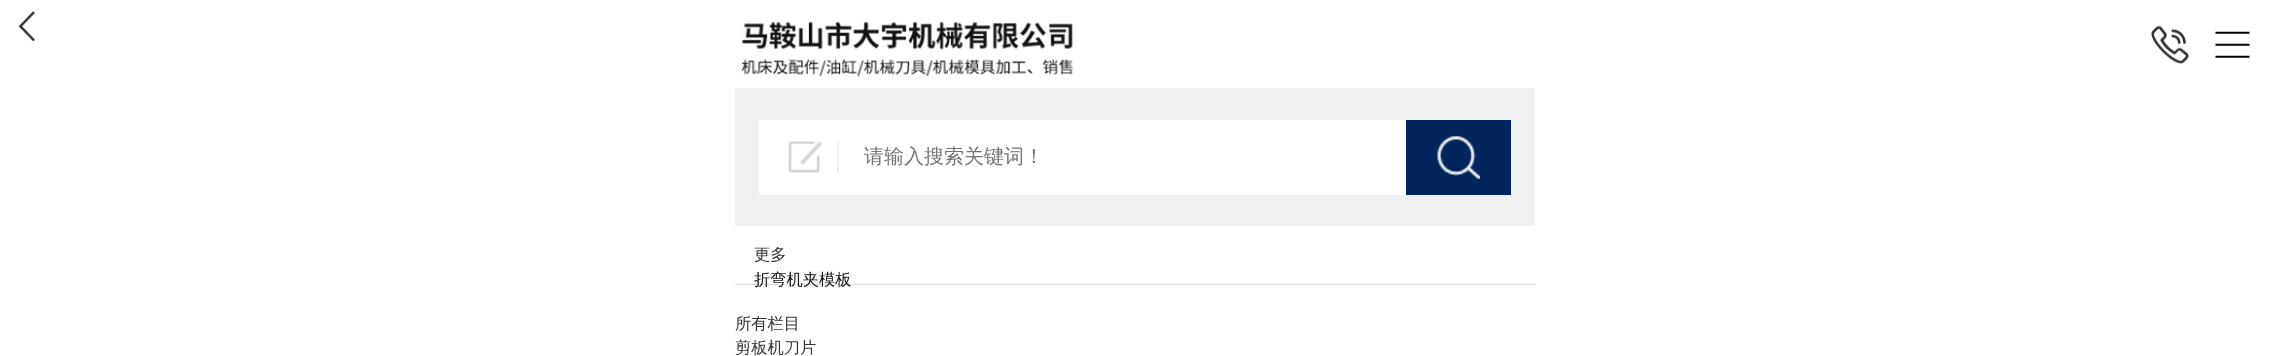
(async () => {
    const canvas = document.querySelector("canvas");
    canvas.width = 2269;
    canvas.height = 356;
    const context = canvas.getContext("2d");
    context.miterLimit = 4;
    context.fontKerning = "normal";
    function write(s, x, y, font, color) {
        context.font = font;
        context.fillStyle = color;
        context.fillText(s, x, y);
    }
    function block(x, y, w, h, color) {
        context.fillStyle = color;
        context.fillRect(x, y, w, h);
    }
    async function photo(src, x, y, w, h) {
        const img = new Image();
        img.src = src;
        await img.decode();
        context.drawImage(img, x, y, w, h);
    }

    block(0, 0, 2269, 356, "rgb(255, 255, 255)");
    await photo("media/1.png", 741, 21, 333, 56);
    await photo("media/2.png", 2151, 25, 38, 39);
    await photo("media/3.png", 2215, 31, 35, 27);
    block(735, 88, 800, 138, "rgb(240, 240, 240)");
    block(759, 120, 647, 75, "rgb(255, 255, 255)");
    await photo("media/4.png", 788, 141, 51, 32);
    write("请输入搜索关键词！", 864, 163, "500 20px WenQuanYi Zen Hei", "rgb(117, 117, 117)");
    block(1406, 120, 105, 75, "rgb(0, 37, 92)");
    await photo("media/5.png", 1437, 136, 43, 43);
    await photo("media/6.png", 735, 283, 800, 2);
    write("更多", 754, 260, "500 16.25px WenQuanYi Zen Hei", "rgb(51, 51, 51)");
    write("折弯机夹模板", 754, 285, "500 16.25px WenQuanYi Zen Hei", "rgb(17, 17, 17)");
    await photo("media/7.png", 18, 11, 17, 31);
    write("所有栏目", 735, 329, "500 16.25px WenQuanYi Zen Hei", "rgb(51, 51, 51)");
    write("剪板机刀片", 735, 353, "500 16.25px WenQuanYi Zen Hei", "rgb(51, 51, 51)");
})();
